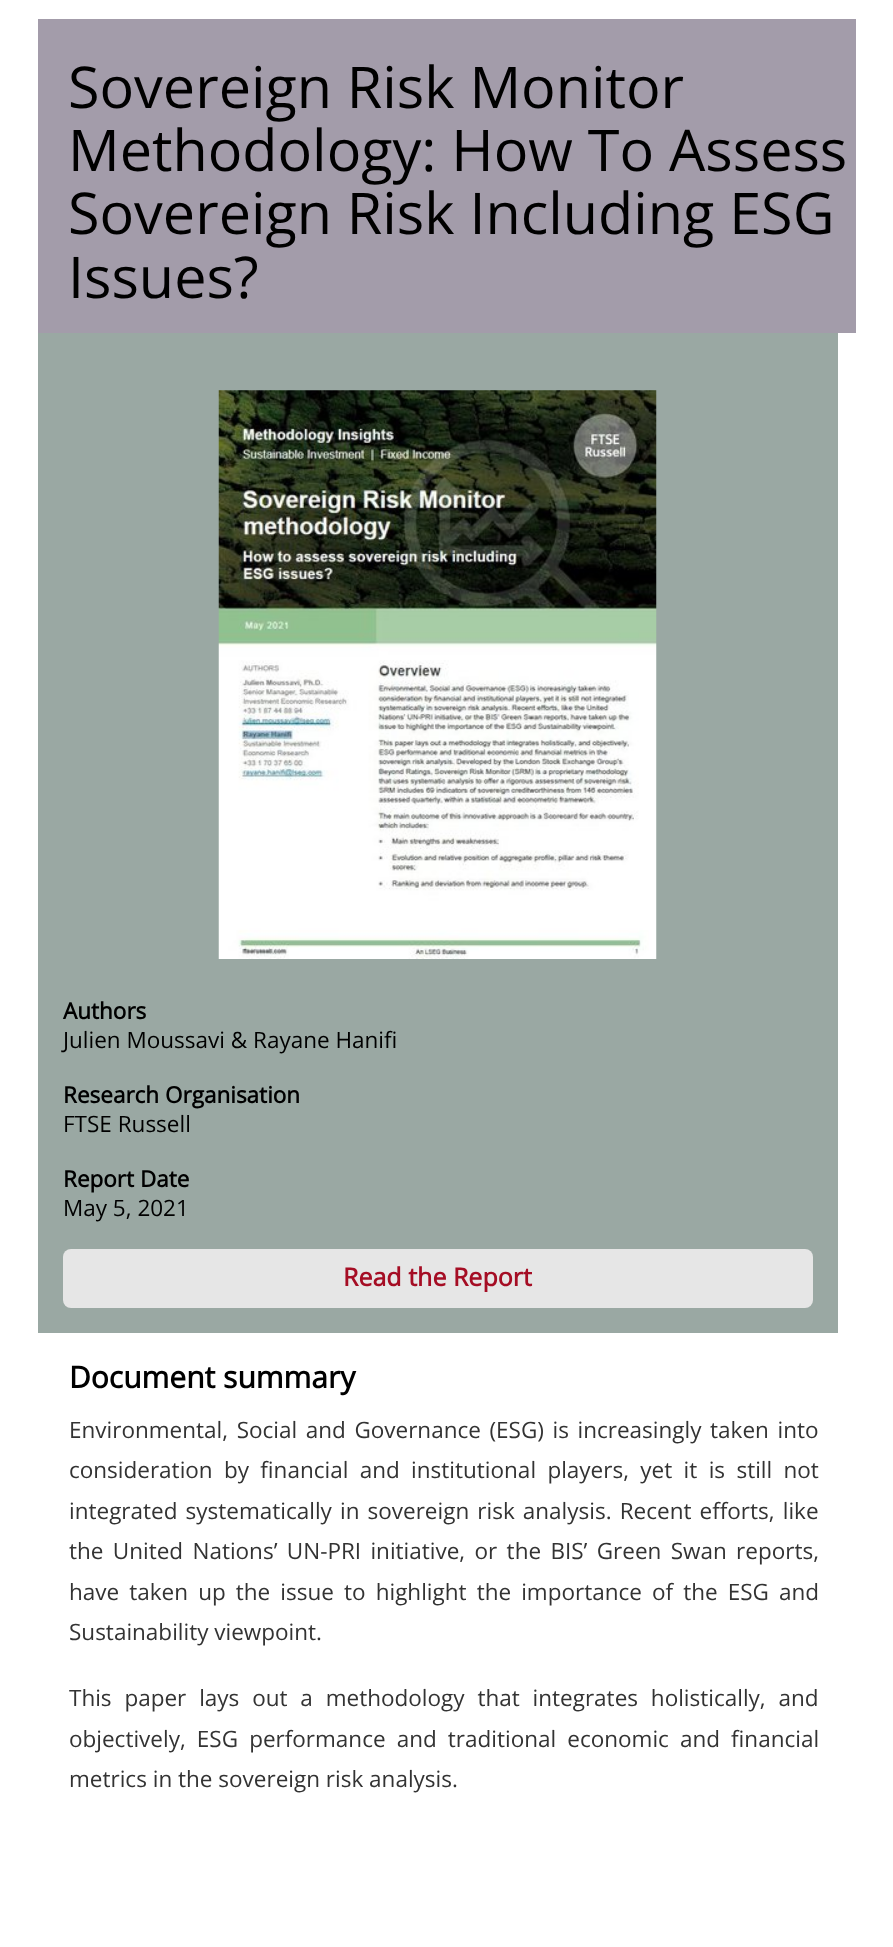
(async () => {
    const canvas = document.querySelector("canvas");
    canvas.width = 893;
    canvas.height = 1947;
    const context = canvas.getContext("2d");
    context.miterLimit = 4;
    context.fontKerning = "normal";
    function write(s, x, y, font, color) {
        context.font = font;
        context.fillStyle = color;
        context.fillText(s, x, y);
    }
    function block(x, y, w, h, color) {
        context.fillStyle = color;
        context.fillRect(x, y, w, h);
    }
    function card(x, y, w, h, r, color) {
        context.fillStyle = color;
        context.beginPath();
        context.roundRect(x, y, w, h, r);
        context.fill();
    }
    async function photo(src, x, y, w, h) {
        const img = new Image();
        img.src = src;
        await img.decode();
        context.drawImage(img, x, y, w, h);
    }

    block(0, 0, 893, 1947, "rgb(255, 255, 255)");
    block(38, 19, 818, 314, "rgb(163, 156, 170)");
    write("Sovereign Risk Monitor", 68, 108, "57.5px Open Sans", "rgb(0, 0, 0)");
    write("Methodology: How To Assess", 68, 171, "57.5px Open Sans", "rgb(0, 0, 0)");
    write("Sovereign Risk Including ESG", 68, 234, "57.5px Open Sans", "rgb(0, 0, 0)");
    write("Issues?", 68, 298, "57.5px Open Sans", "rgb(0, 0, 0)");
    block(38, 333, 800, 1000, "rgb(154, 168, 163)");
    await photo("media/1.png", 218, 390, 439, 569);
    write("Authors", 63, 1019, "bold 22.5px Open Sans", "rgb(0, 0, 0)");
    write("Julien Moussavi & Rayane Hanifi", 63, 1048, "22.5px Open Sans", "rgb(0, 0, 0)");
    write("Research Organisation", 63, 1103, "bold 22.5px Open Sans", "rgb(0, 0, 0)");
    write("FTSE Russell", 63, 1132, "22.5px Open Sans", "rgb(0, 0, 0)");
    write("Report Date", 63, 1187, "bold 22.5px Open Sans", "rgb(0, 0, 0)");
    write("May 5, 2021", 63, 1216, "22.5px Open Sans", "rgb(0, 0, 0)");
    card(63, 1249, 750, 59, 8, "rgb(230, 230, 230)");
    write("Read the Report", 343, 1286, "bold 25px Open Sans", "rgb(165, 13, 36)");
    write("Document summary", 69, 1388, "bold 30px Open Sans", "rgb(0, 0, 0)");
    context.wordSpacing = "2.75px";
    write("Environmental, Social and Governance (ESG) is increasingly taken into", 69, 1438, "22.5px Open Sans", "rgb(51, 51, 51)");
    context.wordSpacing = "5.5px";
    write("consideration by financial and institutional players, yet it is still not", 69, 1478, "22.5px Open Sans", "rgb(51, 51, 51)");
    context.wordSpacing = "2.25px";
    write("integrated systematically in sovereign risk analysis. Recent efforts, like", 69, 1519, "22.5px Open Sans", "rgb(51, 51, 51)");
    context.wordSpacing = "3.5px";
    write("the United Nations’ UN-PRI initiative, or the BIS’ Green Swan reports,", 69, 1559, "22.5px Open Sans", "rgb(51, 51, 51)");
    context.wordSpacing = "4.25px";
    write("have taken up the issue to highlight the importance of the ESG and", 69, 1600, "22.5px Open Sans", "rgb(51, 51, 51)");
    context.wordSpacing = "0px";
    write("Sustainability viewpoint.", 69, 1640, "22.5px Open Sans", "rgb(51, 51, 51)");
    context.wordSpacing = "7px";
    write("This paper lays out a methodology that integrates holistically, and", 69, 1706, "22.5px Open Sans", "rgb(51, 51, 51)");
    context.wordSpacing = "5.25px";
    write("objectively, ESG performance and traditional economic and financial", 69, 1747, "22.5px Open Sans", "rgb(51, 51, 51)");
    context.wordSpacing = "0px";
    write("metrics in the sovereign risk analysis.", 69, 1787, "22.5px Open Sans", "rgb(51, 51, 51)");
})();
